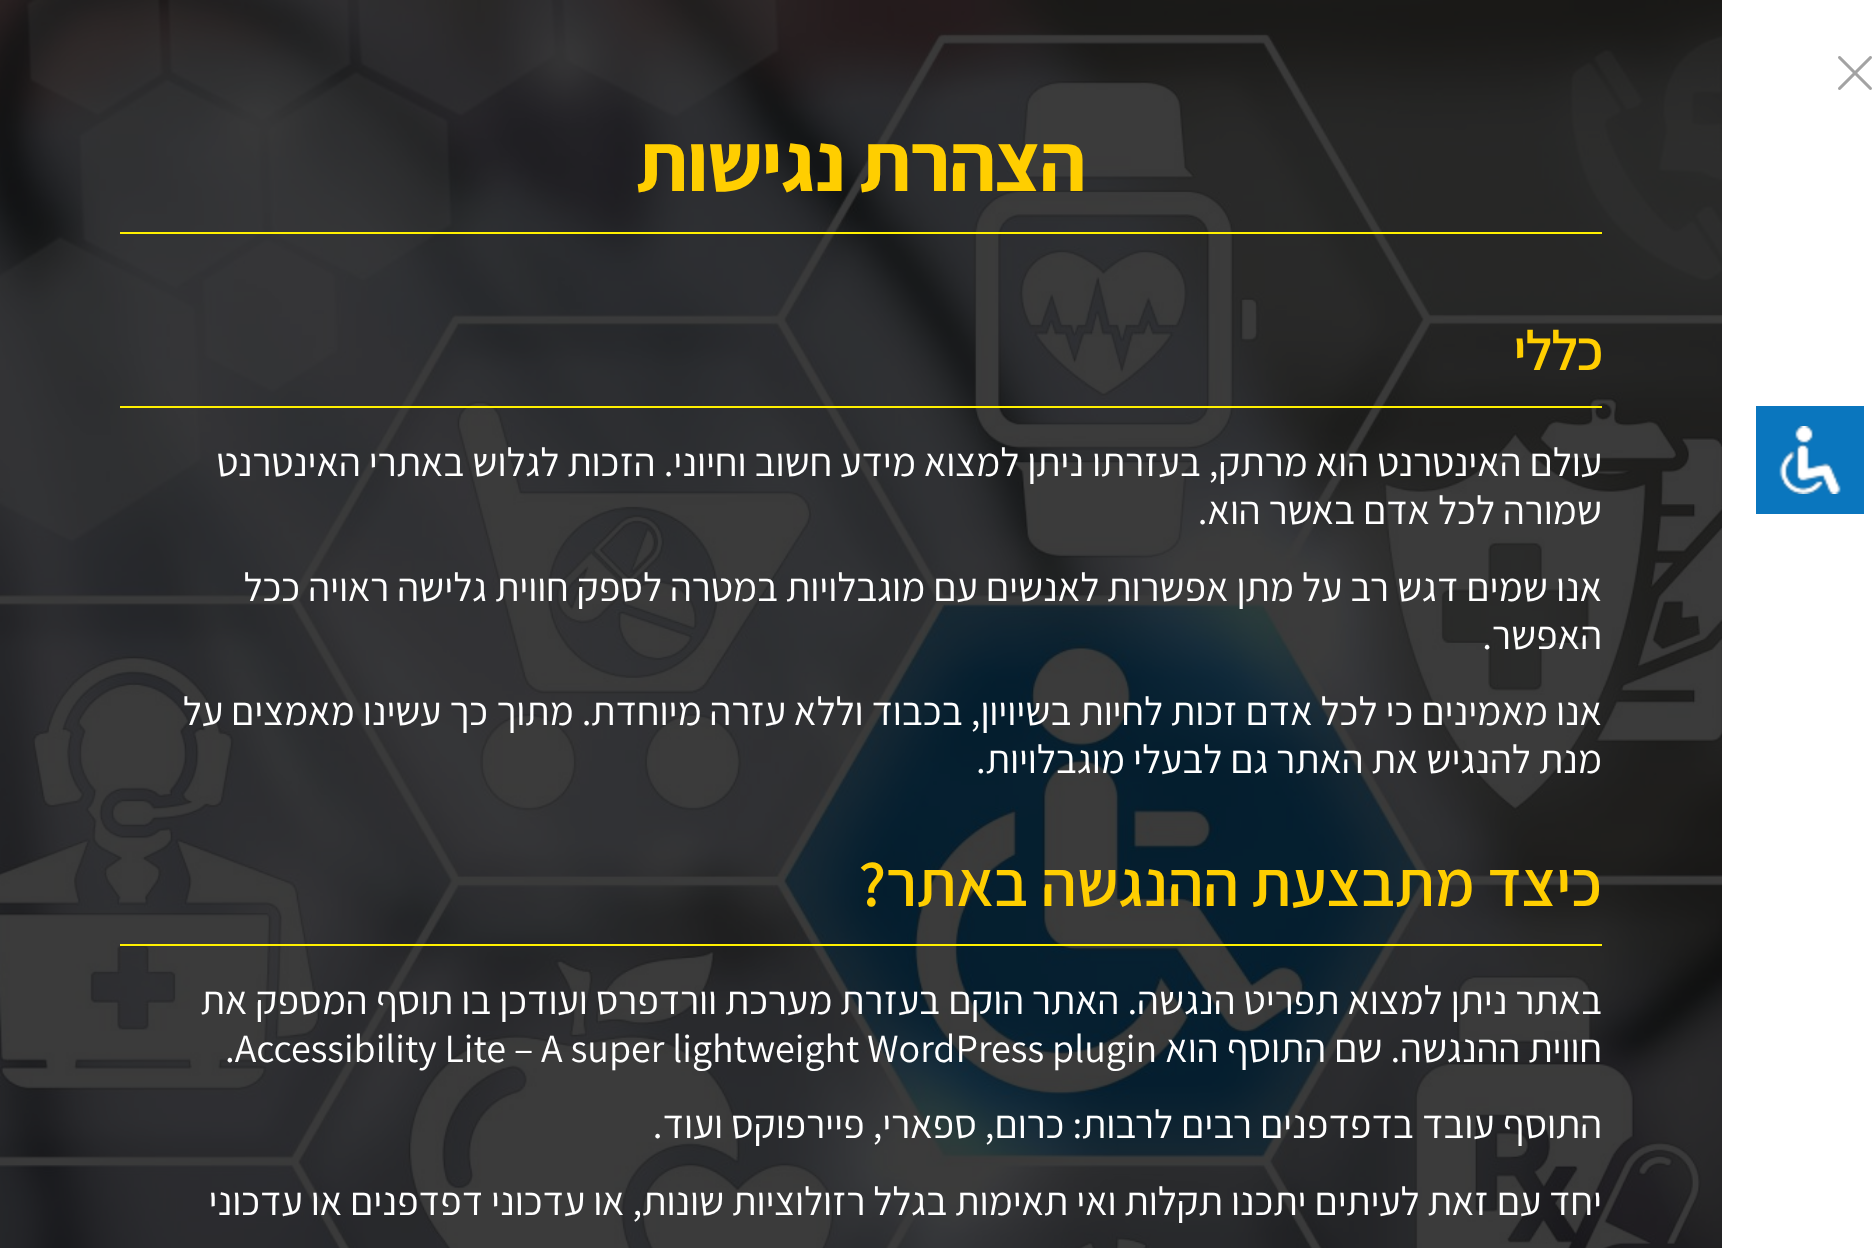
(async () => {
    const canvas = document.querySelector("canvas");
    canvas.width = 1872;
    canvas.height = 1248;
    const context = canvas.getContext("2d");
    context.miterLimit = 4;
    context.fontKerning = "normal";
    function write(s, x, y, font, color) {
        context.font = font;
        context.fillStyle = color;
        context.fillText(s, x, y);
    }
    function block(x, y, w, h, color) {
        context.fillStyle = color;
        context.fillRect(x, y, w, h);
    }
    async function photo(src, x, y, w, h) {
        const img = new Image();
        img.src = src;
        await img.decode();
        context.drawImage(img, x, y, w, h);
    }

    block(0, 0, 1872, 1248, "rgb(255, 255, 255)");
    context.fillStyle = "rgb(10, 118, 190)";
    context.beginPath();
    context.roundRect(1753, 403, 114, 114, 1);
    context.fill();
    context.strokeStyle = "rgb(255, 255, 255)";
    context.lineWidth = 6;
    context.stroke();
    await photo("media/1.png", 1779, 426, 62, 68);
    await photo("media/2.png", 1838, 56, 34, 34);
    await photo("media/3.png", 0, 0, 1722, 1248);
    context.letterSpacing = "-1.3px";
    context.direction = "rtl";
    write("הצהרת נגישות", 1085, 191, "bold 82px Assistant", "rgb(255, 206, 0)");
    block(120, 232, 1482, 2, "rgb(255, 240, 0)");
    context.letterSpacing = "-1.5px";
    write("כללי", 1602, 370, "600 56px Assistant", "rgb(255, 206, 0)");
    block(120, 406, 1482, 2, "rgb(255, 240, 0)");
    context.letterSpacing = "0px";
    write("עולם האינטרנט הוא מרתק, בעזרתו ניתן למצוא מידע חשוב וחיוני. הזכות לגלוש באתרי האינטרנט", 1602, 476, "40px Assistant", "rgb(255, 255, 255)");
    write("שמורה לכל אדם באשר הוא.", 1602, 524, "40px Assistant", "rgb(255, 255, 255)");
    write("אנו שמים דגש רב על מתן אפשרות לאנשים עם מוגבלויות במטרה לספק חווית גלישה ראויה ככל", 1602, 601, "40px Assistant", "rgb(255, 255, 255)");
    write("האפשר.", 1602, 649, "40px Assistant", "rgb(255, 255, 255)");
    write("אנו מאמינים כי לכל אדם זכות לחיות בשיויון, בכבוד וללא עזרה מיוחדת. מתוך כך עשינו מאמצים על", 1602, 725, "40px Assistant", "rgb(255, 255, 255)");
    write("מנת להנגיש את האתר גם לבעלי מוגבלויות.", 1602, 773, "40px Assistant", "rgb(255, 255, 255)");
    write("כיצד מתבצעת ההנגשה באתר?", 1602, 906, "600 64px Assistant", "rgb(255, 206, 0)");
    block(120, 944, 1482, 2, "rgb(255, 240, 0)");
    write("באתר ניתן למצוא תפריט הנגשה. האתר הוקם בעזרת מערכת וורדפרס ועודכן בו תוסף המספק את", 1602, 1014, "40px Assistant", "rgb(255, 255, 255)");
    write("חווית ההנגשה. שם התוסף הוא", 1602, 1062, "40px Assistant", "rgb(255, 255, 255)");
    context.direction = "ltr";
    write(".Accessibility Lite – A super lightweight WordPress plugin", 225, 1062, "40px Assistant", "rgb(255, 255, 255)");
    context.direction = "rtl";
    write("התוסף עובד בדפדפנים רבים לרבות: כרום, ספארי, פיירפוקס ועוד.", 1602, 1138, "40px Assistant", "rgb(255, 255, 255)");
    write("יחד עם זאת לעיתים יתכנו תקלות ואי תאימות בגלל רזולוציות שונות, או עדכוני דפדפנים או עדכוני", 1602, 1215, "40px Assistant", "rgb(255, 255, 255)");
})();
